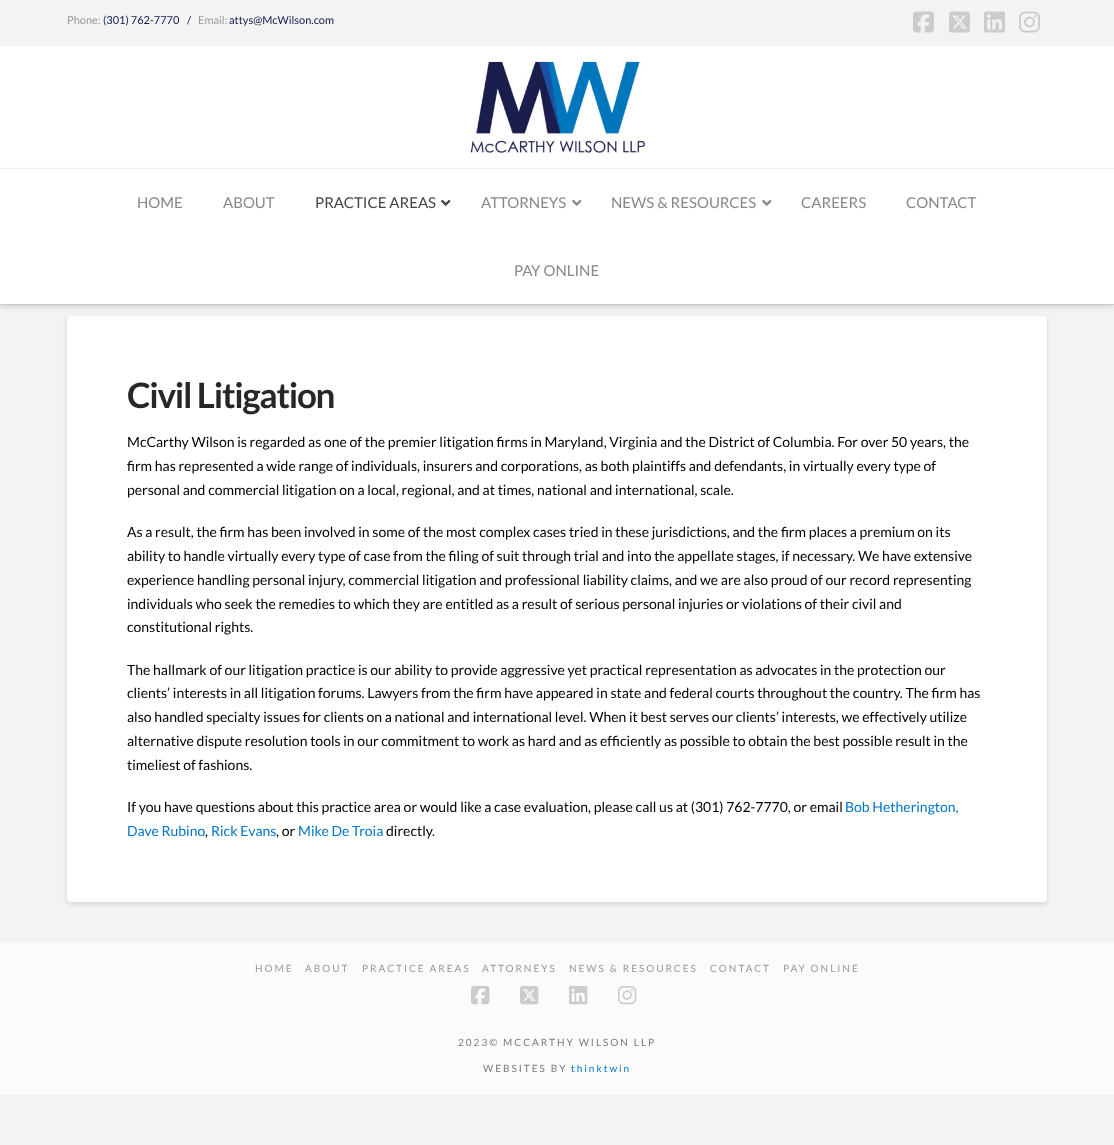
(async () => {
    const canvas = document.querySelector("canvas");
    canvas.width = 1114;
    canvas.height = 1145;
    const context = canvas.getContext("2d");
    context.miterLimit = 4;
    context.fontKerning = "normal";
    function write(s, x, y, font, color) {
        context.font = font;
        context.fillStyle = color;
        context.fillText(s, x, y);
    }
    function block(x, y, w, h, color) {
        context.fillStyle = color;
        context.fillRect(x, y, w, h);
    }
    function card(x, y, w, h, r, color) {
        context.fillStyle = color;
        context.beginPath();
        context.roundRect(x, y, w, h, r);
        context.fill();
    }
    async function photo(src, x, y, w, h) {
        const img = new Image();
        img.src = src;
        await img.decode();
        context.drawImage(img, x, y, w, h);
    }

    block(0, 0, 1114, 1145, "rgb(243, 243, 243)");
    write("Phone:", 67, 24, "11px Lato", "rgb(153, 153, 153)");
    write("(301) 762-7770", 103, 24, "11px Lato", "rgb(17, 28, 78)");
    write("/", 187, 24, "11px Lato", "rgb(17, 28, 78)");
    write("Email:", 198, 24, "11px Lato", "rgb(153, 153, 153)");
    write("attys@McWilson.com", 229, 24, "11px Lato", "rgb(17, 28, 78)");
    await photo("media/1.png", 913, 11, 21, 22);
    await photo("media/2.png", 949, 11, 21, 22);
    await photo("media/3.png", 984, 11, 21, 22);
    await photo("media/4.png", 1019, 11, 21, 22);
    block(0, 46, 1114, 122, "rgb(255, 255, 255)");
    await photo("media/5.png", 470, 61, 175, 92);
    context.fillStyle = "rgba(0, 0, 0, 0.13)";
    context.filter = "blur(2.5px)";
    context.beginPath();
    context.rect(0, 171, 1114, 136);
    context.fill();
    context.filter = "none";
    block(0, 169, 1114, 135, "rgb(255, 255, 255)");
    block(0, 304, 1114, 1, "rgb(204, 204, 204)");
    write("HOME", 137, 208, "15px Lato", "rgb(136, 136, 136)");
    write("ABOUT", 223, 208, "15px Lato", "rgb(136, 136, 136)");
    write("PRACTICE AREAS", 315, 208, "15px Lato", "rgb(68, 68, 68)");
    await photo("media/6.png", 441, 199, 10, 7);
    write("ATTORNEYS", 481, 208, "15px Lato", "rgb(136, 136, 136)");
    await photo("media/7.png", 572, 199, 10, 7);
    write("NEWS & RESOURCES", 611, 208, "15px Lato", "rgb(136, 136, 136)");
    await photo("media/7.png", 762, 199, 10, 7);
    write("CAREERS", 801, 208, "15px Lato", "rgb(136, 136, 136)");
    write("CONTACT", 906, 208, "15px Lato", "rgb(136, 136, 136)");
    write("PAY ONLINE", 514, 276, "15px Lato", "rgb(136, 136, 136)");
    context.fillStyle = "rgba(0, 0, 0, 0.13)";
    context.filter = "blur(2.5px)";
    context.beginPath();
    context.roundRect(67, 318, 980, 586, 4);
    context.fill();
    context.filter = "none";
    card(67, 316, 980, 586, 4, "rgb(255, 255, 255)");
    context.letterSpacing = "-1.25px";
    write("Civil Litigation", 127, 408, "bold 35px Lato", "rgb(39, 39, 39)");
    context.letterSpacing = "0px";
    write("McCarthy Wilson is regarded as one of the premier litigation firms in Maryland, Virginia and the District of Columbia. For over 50 years, the", 127, 447, "14px Lato", "rgb(0, 0, 0)");
    write("firm has represented a wide range of individuals, insurers and corporations, as both plaintiffs and defendants, in virtually every type of", 127, 471, "14px Lato", "rgb(0, 0, 0)");
    write("personal and commercial litigation on a local, regional, and at times, national and international, scale.", 127, 495, "14px Lato", "rgb(0, 0, 0)");
    write("As a result, the firm has been involved in some of the most complex cases tried in these jurisdictions, and the firm places a premium on its", 127, 537, "14px Lato", "rgb(0, 0, 0)");
    write("ability to handle virtually every type of case from the filing of suit through trial and into the appellate stages, if necessary. We have extensive", 127, 561, "14px Lato", "rgb(0, 0, 0)");
    write("experience handling personal injury, commercial litigation and professional liability claims, and we are also proud of our record representing", 127, 585, "14px Lato", "rgb(0, 0, 0)");
    write("individuals who seek the remedies to which they are entitled as a result of serious personal injuries or violations of their civil and", 127, 609, "14px Lato", "rgb(0, 0, 0)");
    write("constitutional rights.", 127, 632, "14px Lato", "rgb(0, 0, 0)");
    write("The hallmark of our litigation practice is our ability to provide aggressive yet practical representation as advocates in the protection our", 127, 675, "14px Lato", "rgb(0, 0, 0)");
    write("clients’ interests in all litigation forums. Lawyers from the firm have appeared in state and federal courts throughout the country. The firm has", 127, 698, "14px Lato", "rgb(0, 0, 0)");
    write("also handled specialty issues for clients on a national and international level. When it best serves our clients’ interests, we effectively utilize", 127, 722, "14px Lato", "rgb(0, 0, 0)");
    write("alternative dispute resolution tools in our commitment to work as hard and as efficiently as possible to obtain the best possible result in the", 127, 746, "14px Lato", "rgb(0, 0, 0)");
    write("timeliest of fashions.", 127, 770, "14px Lato", "rgb(0, 0, 0)");
    write("If you have questions about this practice area or would like a case evaluation, please call us at (301) 762-7770, or email", 127, 812, "14px Lato", "rgb(0, 0, 0)");
    write("Bob Hetherington,", 845, 812, "14px Lato", "rgb(0, 117, 201)");
    write("Dave Rubino", 127, 836, "14px Lato", "rgb(0, 117, 201)");
    write(",", 205, 836, "14px Lato", "rgb(0, 0, 0)");
    write("Rick Evans", 211, 836, "14px Lato", "rgb(0, 117, 201)");
    write(", or", 276, 836, "14px Lato", "rgb(0, 0, 0)");
    write("Mike De Troia", 298, 836, "14px Lato", "rgb(0, 117, 201)");
    write("directly.", 386, 836, "14px Lato", "rgb(0, 0, 0)");
    block(0, 942, 1114, 153, "rgb(251, 251, 251)");
    context.letterSpacing = "2px";
    write("HOME", 255, 972, "10px Lato", "rgb(153, 153, 153)");
    write("ABOUT", 305, 972, "10px Lato", "rgb(153, 153, 153)");
    write("PRACTICE AREAS", 362, 972, "10px Lato", "rgb(153, 153, 153)");
    write("ATTORNEYS", 482, 972, "10px Lato", "rgb(153, 153, 153)");
    write("NEWS & RESOURCES", 569, 972, "10px Lato", "rgb(153, 153, 153)");
    write("CONTACT", 710, 972, "10px Lato", "rgb(153, 153, 153)");
    write("PAY ONLINE", 783, 972, "10px Lato", "rgb(153, 153, 153)");
    await photo("media/8.png", 471, 986, 19, 19);
    await photo("media/9.png", 520, 986, 19, 19);
    await photo("media/10.png", 569, 986, 19, 19);
    await photo("media/11.png", 618, 986, 19, 19);
    write("2023© MCCARTHY WILSON LLP", 458, 1046, "10px Lato", "rgb(122, 122, 122)");
    write("WEBSITES BY", 483, 1072, "10px Lato", "rgb(122, 122, 122)");
    write("thinktwin", 571, 1072, "10px Lato", "rgb(0, 117, 201)");
})();
